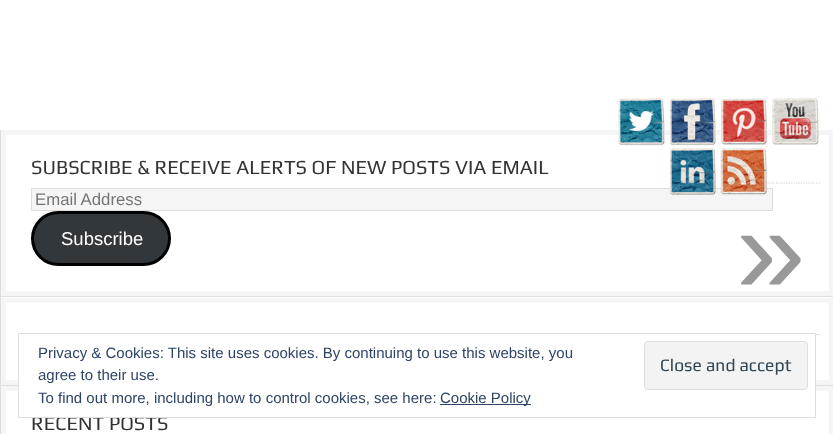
(async () => {
    const canvas = document.querySelector("canvas");
    canvas.width = 833;
    canvas.height = 434;
    const context = canvas.getContext("2d");
    context.miterLimit = 4;
    context.fontKerning = "normal";
    function write(s, x, y, font, color) {
        context.font = font;
        context.fillStyle = color;
        context.fillText(s, x, y);
    }
    function block(x, y, w, h, color) {
        context.fillStyle = color;
        context.fillRect(x, y, w, h);
    }
    async function photo(src, x, y, w, h) {
        const img = new Image();
        img.src = src;
        await img.decode();
        context.drawImage(img, x, y, w, h);
    }

    block(0, 0, 833, 434, "rgb(255, 255, 255)");
    context.strokeStyle = "rgb(245, 245, 245)";
    context.lineWidth = 5;
    context.strokeRect(3.5, 132.5, 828, 161);
    await photo("media/1.png", 618, 97, 47, 49);
    await photo("media/2.png", 670, 97, 46, 49);
    await photo("media/3.png", 721, 98, 47, 47);
    await photo("media/4.png", 772, 97, 47, 48);
    context.fillStyle = "rgb(245, 245, 245)";
    context.beginPath();
    context.rect(31.5, 188.5, 741, 22);
    context.fill();
    context.strokeStyle = "rgb(221, 221, 221)";
    context.lineWidth = 1;
    context.stroke();
    await photo("media/5.png", 670, 147, 46, 48);
    context.beginPath();
    context.moveTo(721, 183);
    context.lineTo(821, 183);
    context.strokeStyle = "rgb(204, 204, 204)";
    context.lineWidth = 1.2;
    context.setLineDash([1.25, 1.25]);
    context.stroke();
    await photo("media/6.png", 720, 147, 47, 48);
    block(0, 296, 833, 1, "rgb(221, 221, 221)");
    block(0, 130, 1, 168, "rgb(221, 221, 221)");
    write("SUBSCRIBE & RECEIVE ALERTS OF NEW POSTS VIA EMAIL", 31, 174, "20px Play", "rgb(51, 51, 51)");
    write("Email Address", 35, 205, "16.75px Liberation Sans", "rgb(117, 117, 117)");
    context.fillStyle = "rgb(50, 55, 60)";
    context.beginPath();
    context.roundRect(32.5, 212.5, 137, 52, 26);
    context.fill();
    context.strokeStyle = "rgb(0, 0, 0)";
    context.lineWidth = 3;
    context.setLineDash([]);
    context.stroke();
    write("Subscribe", 61, 245, "18.5px Liberation Sans", "rgb(255, 255, 255)");
    block(0, 385, 833, 1, "rgb(221, 221, 221)");
    block(0, 298, 1, 136, "rgb(221, 221, 221)");
    context.strokeStyle = "rgb(245, 245, 245)";
    context.lineWidth = 5;
    context.strokeRect(3.5, 300.5, 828, 82);
    context.strokeRect(3.5, 388.5, 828, 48);
    write("RECENT POSTS", 31, 430, "20px Play", "rgb(51, 51, 51)");
    context.beginPath();
    context.moveTo(721, 334.5);
    context.lineTo(821, 334.5);
    context.strokeStyle = "rgb(204, 204, 204)";
    context.lineWidth = 1.2;
    context.setLineDash([1.25, 1.25]);
    context.stroke();
    write("»", 736, 293, "125px Liberation Sans", "rgb(153, 153, 153)");
    context.fillStyle = "rgb(255, 255, 255)";
    context.beginPath();
    context.rect(18.5, 333.5, 797, 84);
    context.fill();
    context.strokeStyle = "rgb(222, 222, 222)";
    context.lineWidth = 1;
    context.setLineDash([]);
    context.stroke();
    write("Privacy & Cookies: This site uses cookies. By continuing to use this website, you", 38, 358, "15px Liberation Sans", "rgb(46, 68, 103)");
    context.fillStyle = "rgb(243, 243, 243)";
    context.beginPath();
    context.roundRect(644.5, 341.5, 163, 48, 3.5);
    context.fill();
    context.stroke();
    write("Close and accept", 660, 371, "17.5px Play", "rgb(46, 68, 83)");
    write("agree to their use.", 38, 380, "15px Liberation Sans", "rgb(46, 68, 103)");
    write("To find out more, including how to control cookies, see here:", 38, 403, "15px Liberation Sans", "rgb(46, 68, 103)");
    block(440, 404, 91, 1, "rgb(46, 68, 103)");
    write("Cookie Policy", 440, 403, "15px Liberation Sans", "rgb(46, 68, 103)");
})();
